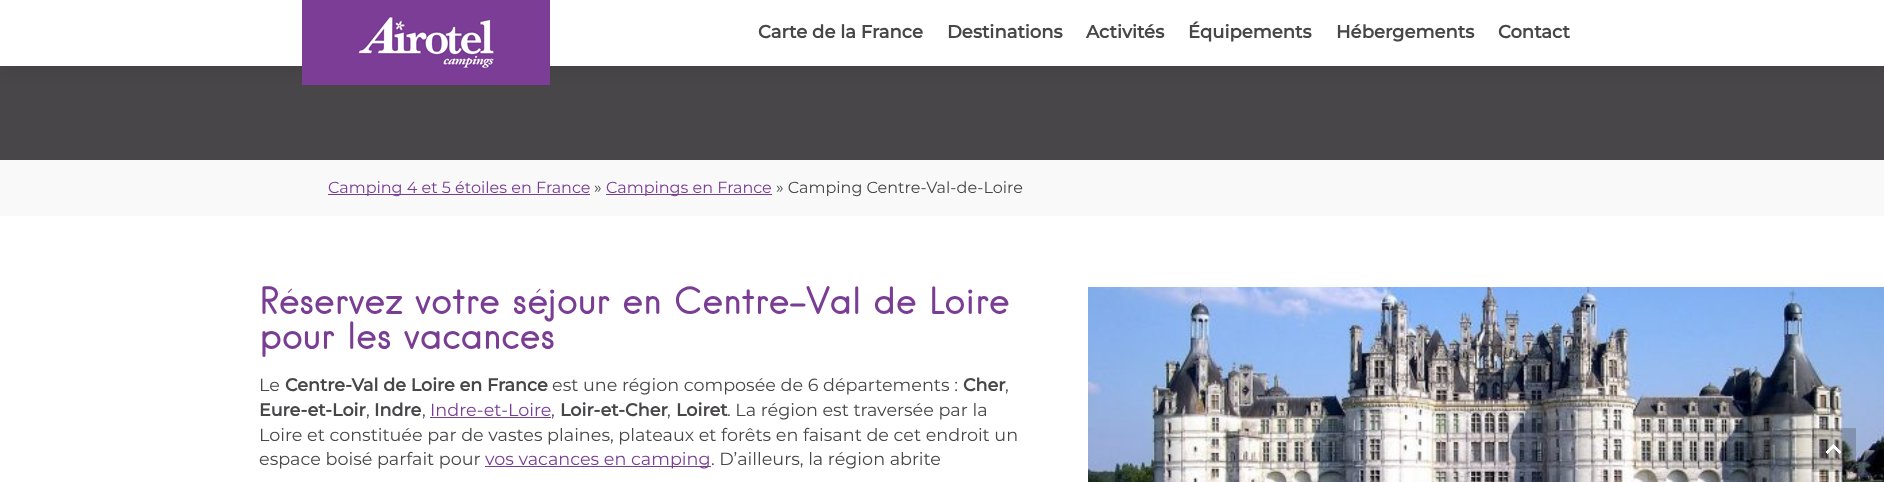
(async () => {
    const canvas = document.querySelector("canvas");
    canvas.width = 1884;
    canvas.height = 482;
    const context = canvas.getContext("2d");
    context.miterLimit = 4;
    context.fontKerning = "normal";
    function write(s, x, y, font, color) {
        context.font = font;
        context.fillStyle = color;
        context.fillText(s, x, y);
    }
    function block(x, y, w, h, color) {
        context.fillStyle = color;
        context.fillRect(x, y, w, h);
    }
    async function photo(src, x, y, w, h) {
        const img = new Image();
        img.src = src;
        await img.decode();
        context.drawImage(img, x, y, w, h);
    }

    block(0, 0, 1884, 482, "rgb(255, 255, 255)");
    block(0, 66, 1884, 94, "rgb(72, 70, 73)");
    context.fillStyle = "rgba(0, 0, 0, 0.07)";
    context.filter = "blur(7.5px)";
    context.beginPath();
    context.rect(0, 4, 1884, 66);
    context.fill();
    context.filter = "none";
    block(0, 0, 1884, 66, "rgb(255, 255, 255)");
    await photo("media/1.png", 302, 0, 248, 85);
    write("Carte de la France", 758, 38, "bold 18px Montserrat", "rgb(72, 70, 73)");
    write("Destinations", 947, 38, "bold 18px Montserrat", "rgb(72, 70, 73)");
    write("Activités", 1086, 38, "bold 18px Montserrat", "rgb(72, 70, 73)");
    write("Équipements", 1188, 38, "bold 18px Montserrat", "rgb(72, 70, 73)");
    write("Hébergements", 1336, 38, "bold 18px Montserrat", "rgb(72, 70, 73)");
    write("Contact", 1498, 38, "bold 18px Montserrat", "rgb(72, 70, 73)");
    block(0, 160, 1884, 56, "rgb(249, 249, 249)");
    block(328, 194, 262, 1, "rgb(122, 61, 148)");
    write("Camping 4 et 5 étoiles en France", 328, 193, "16px Montserrat", "rgb(122, 61, 148)");
    write("»", 594, 193, "16px Montserrat", "rgb(72, 70, 73)");
    block(606, 194, 166, 1, "rgb(122, 61, 148)");
    write("Campings en France", 606, 193, "16px Montserrat", "rgb(122, 61, 148)");
    write("» Camping Centre-Val-de-Loire", 776, 193, "16px Montserrat", "rgb(72, 70, 73)");
    write("Réservez votre séjour en Centre-Val de Loire", 259, 314, "bold 35.2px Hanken", "rgb(122, 61, 148)");
    write("pour les vacances", 259, 349, "bold 35.2px Hanken", "rgb(122, 61, 148)");
    write("Le", 259, 391, "17.6px Montserrat", "rgb(72, 70, 73)");
    write("Centre-Val de Loire en France", 285, 391, "bold 17.6px Montserrat", "rgb(72, 70, 73)");
    write("est une région composée de 6 départements :", 552, 391, "17.6px Montserrat", "rgb(72, 70, 73)");
    write("Cher", 963, 391, "bold 17.6px Montserrat", "rgb(72, 70, 73)");
    write(",", 1005, 391, "17.6px Montserrat", "rgb(72, 70, 73)");
    write("Eure-et-Loir", 259, 416, "bold 17.6px Montserrat", "rgb(72, 70, 73)");
    write(",", 366, 416, "17.6px Montserrat", "rgb(72, 70, 73)");
    write("Indre", 374, 416, "bold 17.6px Montserrat", "rgb(72, 70, 73)");
    write(",", 422, 416, "17.6px Montserrat", "rgb(72, 70, 73)");
    write("Indre-et-Loire", 430, 416, "17.6px Montserrat", "rgb(122, 61, 148)");
    block(430, 417, 121, 1, "rgb(122, 61, 148)");
    write(",", 551, 416, "17.6px Montserrat", "rgb(72, 70, 73)");
    write("Loir-et-Cher", 560, 416, "bold 17.6px Montserrat", "rgb(72, 70, 73)");
    write(",", 667, 416, "17.6px Montserrat", "rgb(72, 70, 73)");
    write("Loiret", 676, 416, "bold 17.6px Montserrat", "rgb(72, 70, 73)");
    write(". La région est traversée par la", 727, 416, "17.6px Montserrat", "rgb(72, 70, 73)");
    write("Loire et constituée par de vastes plaines, plateaux et forêts en faisant de cet endroit un", 259, 441, "17.6px Montserrat", "rgb(72, 70, 73)");
    write("espace boisé parfait pour", 259, 465, "17.6px Montserrat", "rgb(72, 70, 73)");
    block(485, 466, 226, 1, "rgb(122, 61, 148)");
    write("vos vacances en camping", 485, 465, "17.6px Montserrat", "rgb(122, 61, 148)");
    write(". D’ailleurs, la région abrite", 711, 465, "17.6px Montserrat", "rgb(72, 70, 73)");
    await photo("media/2.png", 1088, 287, 796, 195);
    block(1812, 428, 44, 44, "rgba(10, 10, 10, 0.2)");
    await photo("media/3.png", 1826, 444, 15, 10);
})();
